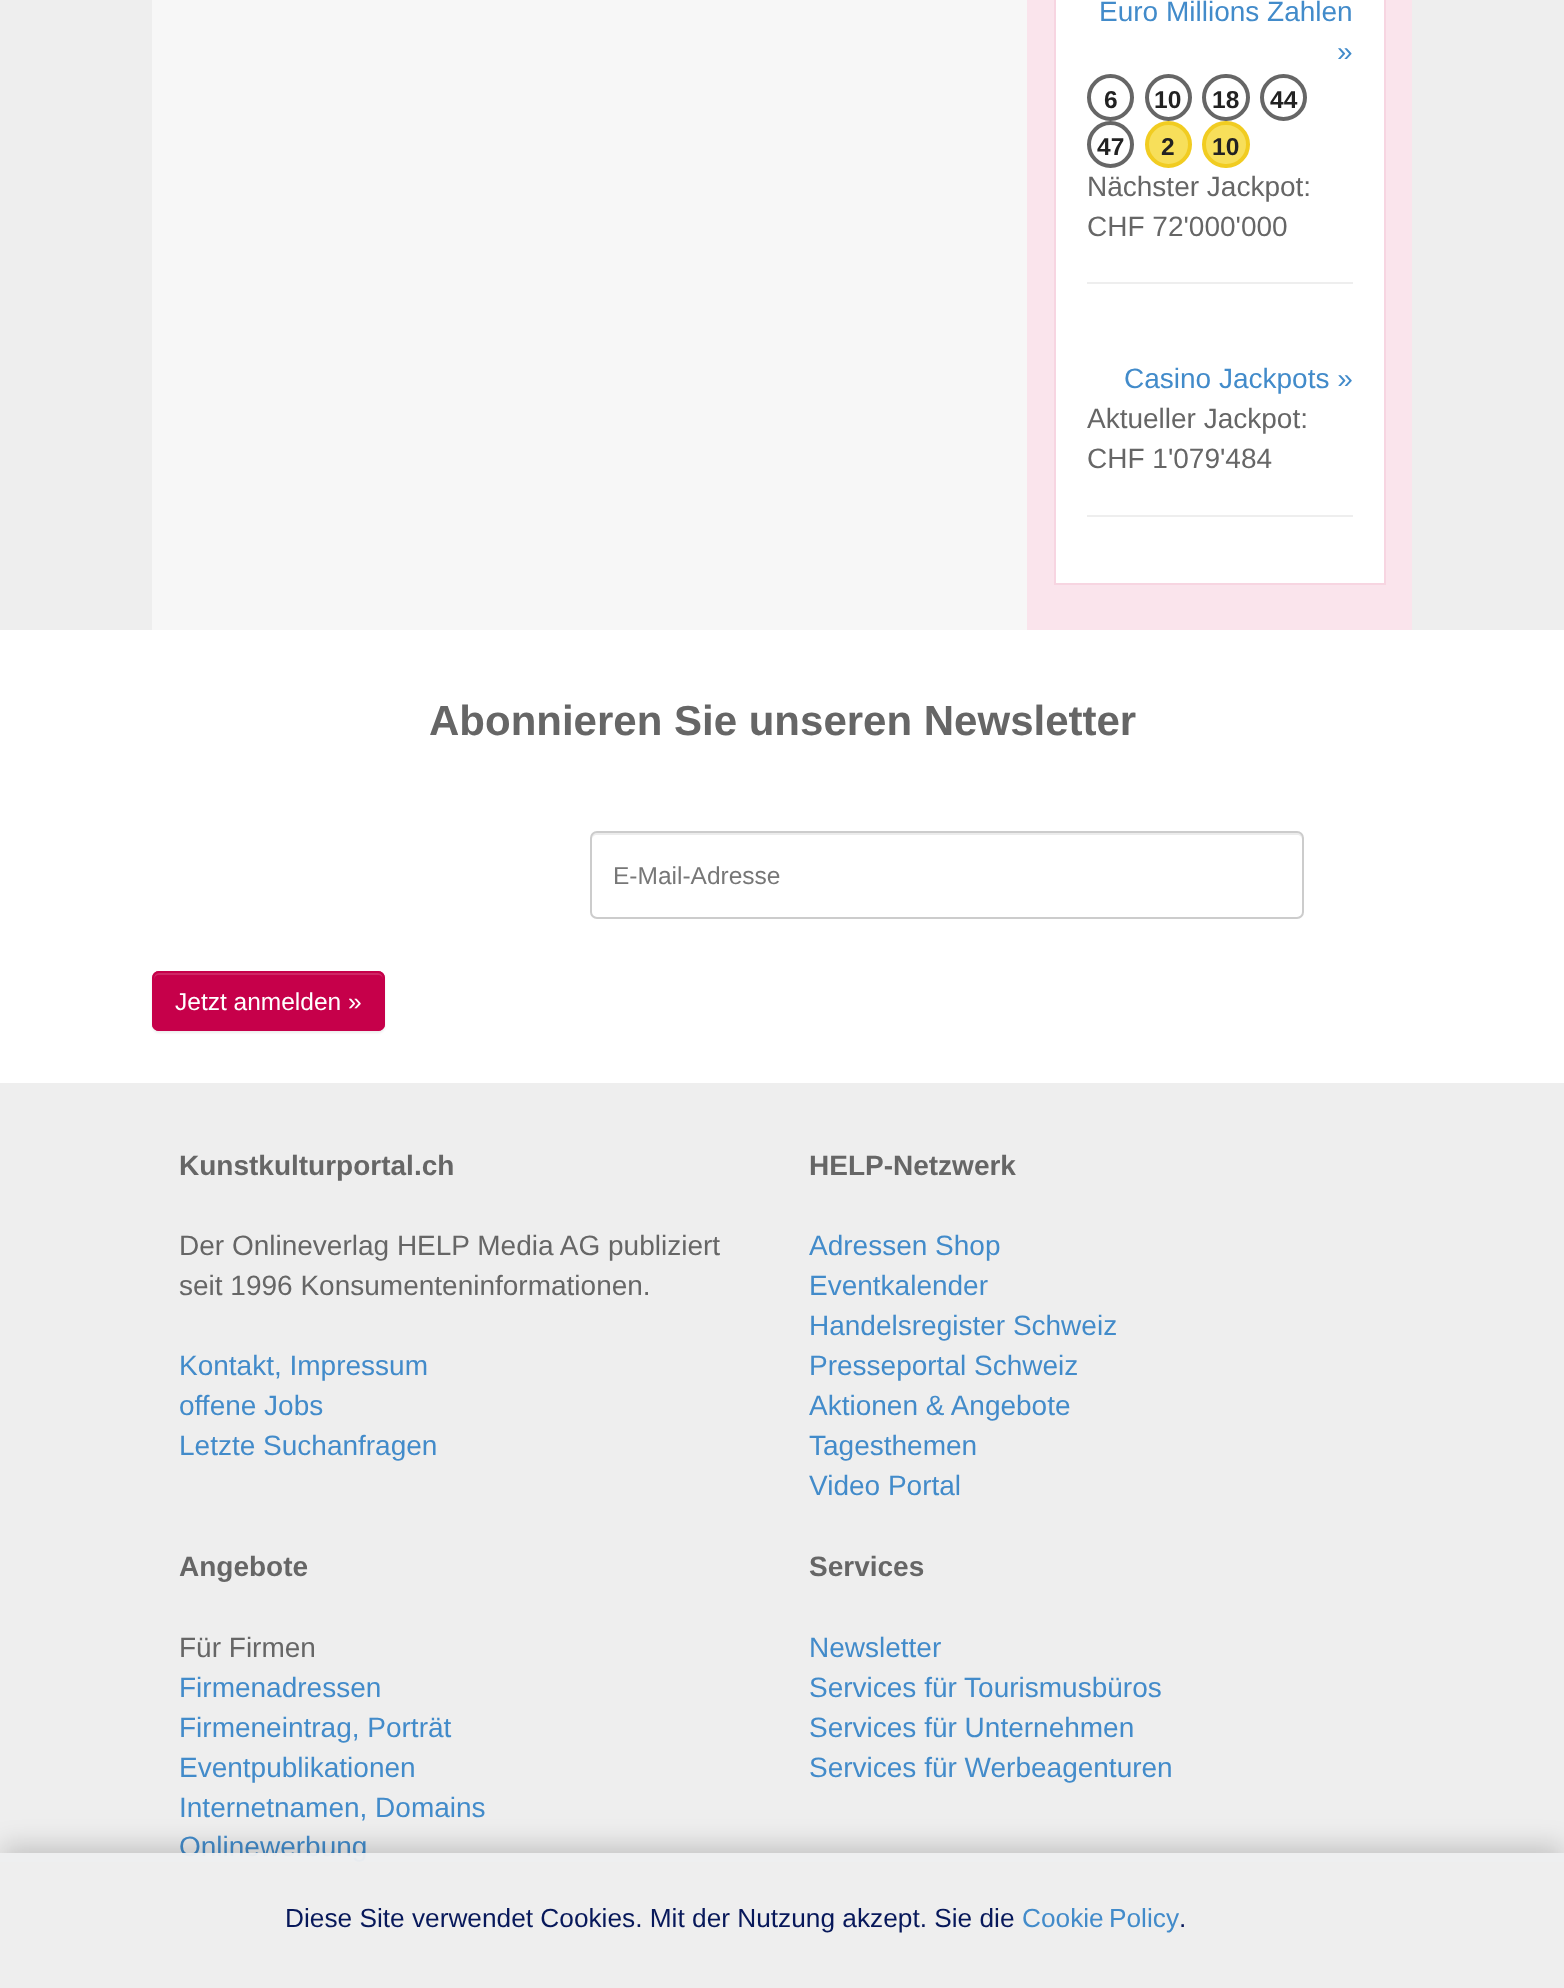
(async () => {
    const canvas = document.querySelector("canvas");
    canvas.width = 1564;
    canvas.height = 1988;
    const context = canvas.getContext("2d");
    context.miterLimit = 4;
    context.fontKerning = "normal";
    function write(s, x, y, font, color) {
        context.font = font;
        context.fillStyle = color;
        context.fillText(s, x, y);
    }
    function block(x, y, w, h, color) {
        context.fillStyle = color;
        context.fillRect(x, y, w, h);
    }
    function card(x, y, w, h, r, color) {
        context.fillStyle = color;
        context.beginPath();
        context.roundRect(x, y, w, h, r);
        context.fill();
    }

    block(0, 0, 1564, 1988, "rgb(255, 255, 255)");
    block(0, 0, 1564, 630, "rgb(238, 238, 238)");
    block(152, 0, 875, 630, "rgb(247, 247, 247)");
    block(1027, 0, 385, 630, "rgb(250, 228, 236)");
    block(1056, 0, 328, 583, "rgb(255, 255, 255)");
    block(1384, 0, 2, 585, "rgb(247, 213, 225)");
    block(1054, 583, 332, 2, "rgb(247, 213, 225)");
    block(1054, 0, 2, 585, "rgb(247, 213, 225)");
    write("Euro Millions Zahlen", 1099, 21, "28px Liberation Sans", "rgb(66, 139, 202)");
    write("»", 1337, 61, "28px Liberation Sans", "rgb(66, 139, 202)");
    context.beginPath();
    context.arc(1110.5, 97.5, 21.5, 0, Math.PI * 2);
    context.strokeStyle = "rgb(102, 102, 102)";
    context.lineWidth = 4;
    context.stroke();
    write("6", 1104, 108, "bold 24.5px Liberation Sans", "rgb(34, 34, 34)");
    context.beginPath();
    context.arc(1168.5, 97.5, 21.5, 0, Math.PI * 2);
    context.stroke();
    write("10", 1154, 108, "bold 24.5px Liberation Sans", "rgb(34, 34, 34)");
    context.beginPath();
    context.roundRect(1204, 76, 44, 43, 21.5);
    context.stroke();
    write("18", 1212, 108, "bold 24.5px Liberation Sans", "rgb(34, 34, 34)");
    context.beginPath();
    context.arc(1283.5, 97.5, 21.5, 0, Math.PI * 2);
    context.stroke();
    write("44", 1270, 108, "bold 24.5px Liberation Sans", "rgb(34, 34, 34)");
    context.beginPath();
    context.arc(1110.5, 144.5, 21.5, 0, Math.PI * 2);
    context.stroke();
    write("47", 1097, 155, "bold 24.5px Liberation Sans", "rgb(34, 34, 34)");
    context.fillStyle = "rgb(247, 223, 90)";
    context.beginPath();
    context.arc(1168.5, 144.5, 21.5, 0, Math.PI * 2);
    context.fill();
    context.strokeStyle = "rgb(241, 204, 33)";
    context.stroke();
    write("2", 1161, 155, "bold 24.5px Liberation Sans", "rgb(34, 34, 34)");
    context.fillStyle = "rgb(247, 223, 90)";
    context.beginPath();
    context.roundRect(1204, 123, 44, 43, 21.5);
    context.fill();
    context.stroke();
    write("10", 1212, 155, "bold 24.5px Liberation Sans", "rgb(34, 34, 34)");
    write("Nächster Jackpot:", 1087, 196, "28px Liberation Sans", "rgb(102, 102, 102)");
    write("CHF 72'000'000", 1087, 236, "28px Liberation Sans", "rgb(102, 102, 102)");
    block(1087, 282, 266, 2, "rgb(238, 238, 238)");
    write("Casino Jackpots »", 1124, 388, "28px Liberation Sans", "rgb(66, 139, 202)");
    write("Aktueller Jackpot:", 1087, 428, "28px Liberation Sans", "rgb(102, 102, 102)");
    write("CHF 1'079'484", 1087, 468, "28px Liberation Sans", "rgb(102, 102, 102)");
    block(1087, 515, 266, 2, "rgb(238, 238, 238)");
    write("Abonnieren Sie unseren Newsletter", 429, 735, "bold 42px Liberation Sans", "rgb(102, 102, 102)");
    context.fillStyle = "rgb(236, 236, 236)";
    context.beginPath();
    context.moveTo(597, 835);
    context.lineTo(1297, 835);
    context.bezierCurveTo(1300, 835, 1302, 837, 1302, 840);
    context.lineTo(1302, 838);
    context.bezierCurveTo(1302, 835, 1300, 833, 1297, 833);
    context.lineTo(597, 833);
    context.bezierCurveTo(594, 833, 592, 835, 592, 838);
    context.lineTo(592, 840);
    context.bezierCurveTo(592, 837, 594, 835, 597, 835);
    context.closePath();
    context.fill();
    context.beginPath();
    context.roundRect(591, 832, 712, 86, 6);
    context.strokeStyle = "rgb(204, 204, 204)";
    context.lineWidth = 2;
    context.stroke();
    write("E-Mail-Adresse", 613, 884, "24.5px Liberation Sans", "rgb(119, 119, 119)");
    context.fillStyle = "rgba(0, 0, 0, 0.07)";
    context.filter = "blur(1px)";
    context.beginPath();
    context.roundRect(152, 973, 233, 60, 7);
    context.fill();
    context.filter = "none";
    card(152, 971, 233, 60, 7, "rgb(198, 0, 74)");
    context.fillStyle = "rgb(207, 38, 101)";
    context.beginPath();
    context.moveTo(159, 975);
    context.lineTo(378, 975);
    context.bezierCurveTo(381, 975, 383, 977, 383, 980);
    context.bezierCurveTo(383, 977, 382, 973, 378, 973);
    context.lineTo(158, 973);
    context.bezierCurveTo(154, 974, 154, 977, 154, 980);
    context.bezierCurveTo(154, 977, 156, 975, 159, 975);
    context.closePath();
    context.fill();
    context.beginPath();
    context.roundRect(153, 972, 231, 58, 6);
    context.strokeStyle = "rgb(198, 0, 74)";
    context.stroke();
    write("Jetzt anmelden »", 175, 1010, "24.5px Liberation Sans", "rgb(255, 255, 255)");
    block(0, 1083, 1564, 905, "rgb(238, 238, 238)");
    write("Kunstkulturportal.ch", 179, 1175, "bold 28px Liberation Sans", "rgb(102, 102, 102)");
    write("Der Onlineverlag HELP Media AG publiziert", 179, 1255, "28px Liberation Sans", "rgb(102, 102, 102)");
    write("seit 1996 Konsumenteninformationen.", 179, 1295, "28px Liberation Sans", "rgb(102, 102, 102)");
    write("Kontakt, Impressum", 179, 1375, "28px Liberation Sans", "rgb(66, 139, 202)");
    write("offene Jobs", 179, 1415, "28px Liberation Sans", "rgb(66, 139, 202)");
    write("Letzte Suchanfragen", 179, 1455, "28px Liberation Sans", "rgb(66, 139, 202)");
    write("HELP-Netzwerk", 809, 1175, "bold 28px Liberation Sans", "rgb(102, 102, 102)");
    write("Adressen Shop", 809, 1255, "28px Liberation Sans", "rgb(66, 139, 202)");
    write("Eventkalender", 809, 1295, "28px Liberation Sans", "rgb(66, 139, 202)");
    write("Handelsregister Schweiz", 809, 1335, "28px Liberation Sans", "rgb(66, 139, 202)");
    write("Presseportal Schweiz", 809, 1375, "28px Liberation Sans", "rgb(66, 139, 202)");
    write("Aktionen & Angebote", 809, 1415, "28px Liberation Sans", "rgb(66, 139, 202)");
    write("Tagesthemen", 809, 1455, "28px Liberation Sans", "rgb(66, 139, 202)");
    write("Video Portal", 809, 1495, "28px Liberation Sans", "rgb(66, 139, 202)");
    write("Angebote", 179, 1576, "bold 28px Liberation Sans", "rgb(102, 102, 102)");
    write("Für Firmen", 179, 1657, "28px Liberation Sans", "rgb(102, 102, 102)");
    write("Firmenadressen", 179, 1697, "28px Liberation Sans", "rgb(66, 139, 202)");
    write("Firmeneintrag, Porträt", 179, 1737, "28px Liberation Sans", "rgb(66, 139, 202)");
    write("Eventpublikationen", 179, 1777, "28px Liberation Sans", "rgb(66, 139, 202)");
    write("Internetnamen, Domains", 179, 1817, "28px Liberation Sans", "rgb(66, 139, 202)");
    write("Onlinewerbung", 179, 1856, "28px Liberation Sans", "rgb(66, 139, 202)");
    write("Services", 809, 1576, "bold 28px Liberation Sans", "rgb(102, 102, 102)");
    write("Newsletter", 809, 1657, "28px Liberation Sans", "rgb(66, 139, 202)");
    write("Services für Tourismusbüros", 809, 1697, "28px Liberation Sans", "rgb(66, 139, 202)");
    write("Services für Unternehmen", 809, 1737, "28px Liberation Sans", "rgb(66, 139, 202)");
    write("Services für Werbeagenturen", 809, 1777, "28px Liberation Sans", "rgb(66, 139, 202)");
    context.save();
    context.beginPath();
    context.moveTo(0, 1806);
    context.lineTo(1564, 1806);
    context.lineTo(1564, 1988);
    context.lineTo(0, 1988);
    context.closePath();
    context.moveTo(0, 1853);
    context.lineTo(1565, 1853);
    context.lineTo(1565, 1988);
    context.lineTo(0, 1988);
    context.closePath();
    context.clip("evenodd");
    context.fillStyle = "rgba(0, 0, 0, 0.18)";
    context.filter = "blur(13px)";
    context.beginPath();
    context.rect(2, 1846, 1561, 132);
    context.fill();
    context.filter = "none";
    context.restore();
    block(0, 1853, 1564, 9, "rgba(237, 238, 239, 0.97)");
    write("Diese Site verwendet Cookies. Mit der Nutzung akzept. Sie die", 285, 1927, "26.25px Liberation Sans", "rgb(7, 24, 90)");
    context.wordSpacing = "-2px";
    write("Cookie Policy", 1022, 1927, "26.25px Liberation Sans", "rgb(66, 139, 202)");
    context.wordSpacing = "0px";
    write(".", 1179, 1927, "26.25px Liberation Sans", "rgb(7, 24, 90)");
})();
